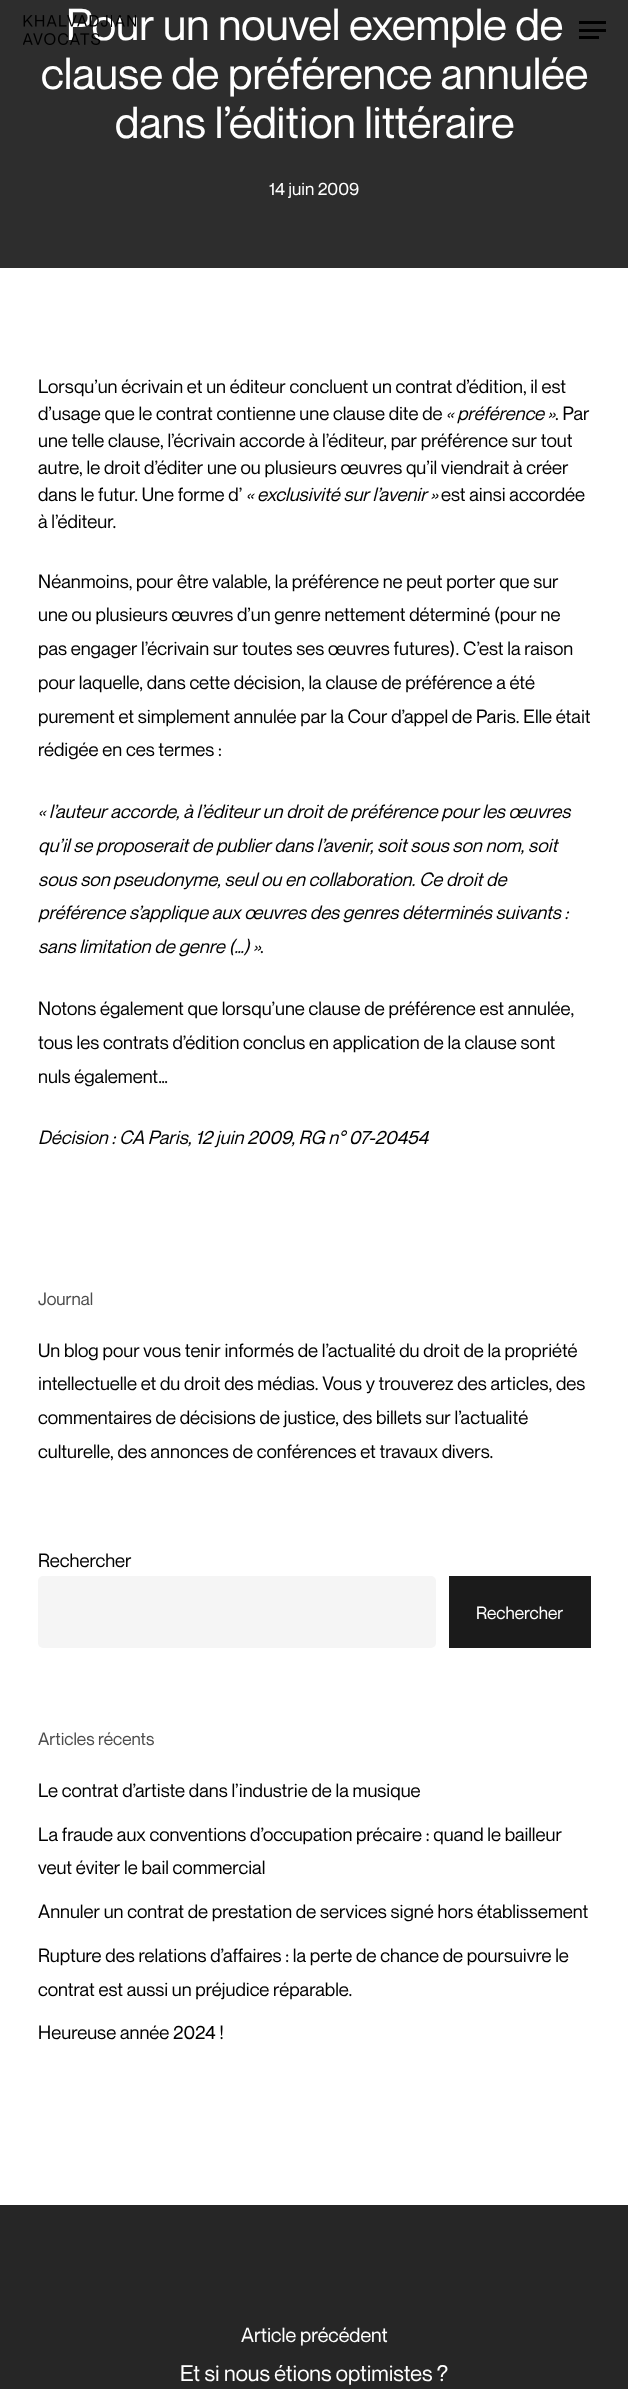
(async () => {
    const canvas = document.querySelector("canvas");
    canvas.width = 628;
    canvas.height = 2389;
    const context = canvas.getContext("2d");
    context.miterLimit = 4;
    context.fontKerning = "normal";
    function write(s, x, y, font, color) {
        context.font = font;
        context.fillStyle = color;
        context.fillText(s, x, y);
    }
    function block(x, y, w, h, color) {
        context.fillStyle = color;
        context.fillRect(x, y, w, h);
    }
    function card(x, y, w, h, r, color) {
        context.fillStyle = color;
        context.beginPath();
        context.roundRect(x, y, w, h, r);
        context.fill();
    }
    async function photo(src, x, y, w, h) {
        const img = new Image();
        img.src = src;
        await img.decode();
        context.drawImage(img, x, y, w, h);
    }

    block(0, 0, 628, 2389, "rgb(255, 255, 255)");
    block(0, 0, 628, 268, "rgb(45, 45, 45)");
    write("Pour un nouvel exemple de", 66, 40, "43.9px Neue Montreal", "rgb(255, 255, 255)");
    write("clause de préférence annulée", 41, 89, "43.9px Neue Montreal", "rgb(255, 255, 255)");
    write("dans l’édition littéraire", 115, 138, "43.9px Neue Montreal", "rgb(255, 255, 255)");
    write("14 juin 2009", 269, 195, "17.5px Neue Montreal", "rgb(255, 255, 255)");
    write("Lorsqu’un écrivain et un éditeur concluent un contrat d’édition, il est", 38, 393, "18.75px Neue Montreal", "rgb(0, 0, 0)");
    write("d’usage que le contrat contienne une clause dite de", 38, 420, "18.75px Neue Montreal", "rgb(0, 0, 0)");
    write("« préférence »", 446, 420, "italic 18.75px Neue Montreal", "rgb(0, 0, 0)");
    write(". Par", 555, 420, "18.75px Neue Montreal", "rgb(0, 0, 0)");
    write("une telle clause, l’écrivain accorde à l’éditeur, par préférence sur tout", 38, 447, "18.75px Neue Montreal", "rgb(0, 0, 0)");
    write("autre, le droit d’éditer une ou plusieurs œuvres qu’il viendrait à créer", 38, 474, "18.75px Neue Montreal", "rgb(0, 0, 0)");
    write("dans le futur. Une forme d’", 38, 501, "18.75px Neue Montreal", "rgb(0, 0, 0)");
    write("« exclusivité sur l’avenir »", 246, 501, "italic 18.75px Neue Montreal", "rgb(0, 0, 0)");
    write("est ainsi accordée", 441, 501, "18.75px Neue Montreal", "rgb(0, 0, 0)");
    write("à l’éditeur.", 38, 528, "18.75px Neue Montreal", "rgb(0, 0, 0)");
    write("Néanmoins, pour être valable, la préférence ne peut porter que sur", 38, 588, "18.75px Neue Montreal", "rgb(0, 0, 0)");
    write("une ou plusieurs œuvres d’un genre nettement déterminé (pour ne", 38, 621, "18.75px Neue Montreal", "rgb(0, 0, 0)");
    write("pas engager l’écrivain sur toutes ses œuvres futures). C’est la raison", 38, 655, "18.75px Neue Montreal", "rgb(0, 0, 0)");
    write("pour laquelle, dans cette décision, la clause de préférence a été", 38, 689, "18.75px Neue Montreal", "rgb(0, 0, 0)");
    write("purement et simplement annulée par la Cour d’appel de Paris. Elle était", 38, 723, "18.75px Neue Montreal", "rgb(0, 0, 0)");
    write("rédigée en ces termes :", 38, 756, "18.75px Neue Montreal", "rgb(0, 0, 0)");
    write("« l’auteur accorde, à l’éditeur un droit de préférence pour les œuvres", 38, 818, "italic 18.75px Neue Montreal", "rgb(0, 0, 0)");
    write("qu’il se proposerait de publier dans l’avenir, soit sous son nom, soit", 38, 852, "italic 18.75px Neue Montreal", "rgb(0, 0, 0)");
    write("sous son pseudonyme, seul ou en collaboration. Ce droit de", 38, 886, "italic 18.75px Neue Montreal", "rgb(0, 0, 0)");
    write("préférence s’applique aux œuvres des genres déterminés suivants :", 38, 919, "italic 18.75px Neue Montreal", "rgb(0, 0, 0)");
    write("sans limitation de genre (…) »", 38, 953, "italic 18.75px Neue Montreal", "rgb(0, 0, 0)");
    write(".", 260, 953, "18.75px Neue Montreal", "rgb(0, 0, 0)");
    write("Notons également que lorsqu’une clause de préférence est annulée,", 38, 1015, "18.75px Neue Montreal", "rgb(0, 0, 0)");
    write("tous les contrats d’édition conclus en application de la clause sont", 38, 1049, "18.75px Neue Montreal", "rgb(0, 0, 0)");
    write("nuls également…", 38, 1083, "18.75px Neue Montreal", "rgb(0, 0, 0)");
    write("Décision : CA Paris, 12 juin 2009, RG n° 07-20454", 38, 1144, "italic 18.75px Neue Montreal", "rgb(0, 0, 0)");
    write("Journal", 38, 1305, "17.5px Neue Montreal", "rgb(77, 77, 77)");
    write("Un blog pour vous tenir informés de l’actualité du droit de la propriété", 38, 1357, "18.75px Neue Montreal", "rgb(0, 0, 0)");
    write("intellectuelle et du droit des médias. Vous y trouverez des articles, des", 38, 1390, "18.75px Neue Montreal", "rgb(0, 0, 0)");
    write("commentaires de décisions de justice, des billets sur l’actualité", 38, 1424, "18.75px Neue Montreal", "rgb(0, 0, 0)");
    write("culturelle, des annonces de conférences et travaux divers.", 38, 1458, "18.75px Neue Montreal", "rgb(0, 0, 0)");
    write("Rechercher", 38, 1567, "18.75px Neue Montreal", "rgb(0, 0, 0)");
    card(38, 1576, 398, 72, 5, "rgb(245, 245, 245)");
    block(449, 1576, 142, 72, "rgb(27, 27, 27)");
    write("Rechercher", 476, 1619, "17.5px Neue Montreal", "rgb(255, 255, 255)");
    write("Articles récents", 38, 1745, "17.5px Neue Montreal", "rgb(77, 77, 77)");
    write("Le contrat d’artiste dans l’industrie de la musique", 38, 1797, "18.75px Neue Montreal", "rgb(0, 0, 0)");
    write("La fraude aux conventions d’occupation précaire : quand le bailleur", 38, 1841, "18.75px Neue Montreal", "rgb(0, 0, 0)");
    write("veut éviter le bail commercial", 38, 1874, "18.75px Neue Montreal", "rgb(0, 0, 0)");
    write("Annuler un contrat de prestation de services signé hors établissement", 38, 1918, "18.75px Neue Montreal", "rgb(0, 0, 0)");
    write("Rupture des relations d’affaires : la perte de chance de poursuivre le", 38, 1962, "18.75px Neue Montreal", "rgb(0, 0, 0)");
    write("contrat est aussi un préjudice réparable.", 38, 1996, "18.75px Neue Montreal", "rgb(0, 0, 0)");
    write("Heureuse année 2024 !", 38, 2039, "18.75px Neue Montreal", "rgb(0, 0, 0)");
    block(0, 2205, 628, 184, "rgb(38, 38, 38)");
    write("Article précédent", 241, 2342, "20px Neue Montreal", "rgb(255, 255, 255)");
    write("Et si nous étions optimistes ?", 180, 2381, "22px Neue Montreal", "rgb(255, 255, 255)");
    await photo("media/1.png", 23, 15, 113, 30);
    block(579, 21, 27, 3, "rgb(0, 0, 0)");
    block(579, 36, 20, 3, "rgb(0, 0, 0)");
    block(579, 29, 27, 3, "rgb(0, 0, 0)");
})();
